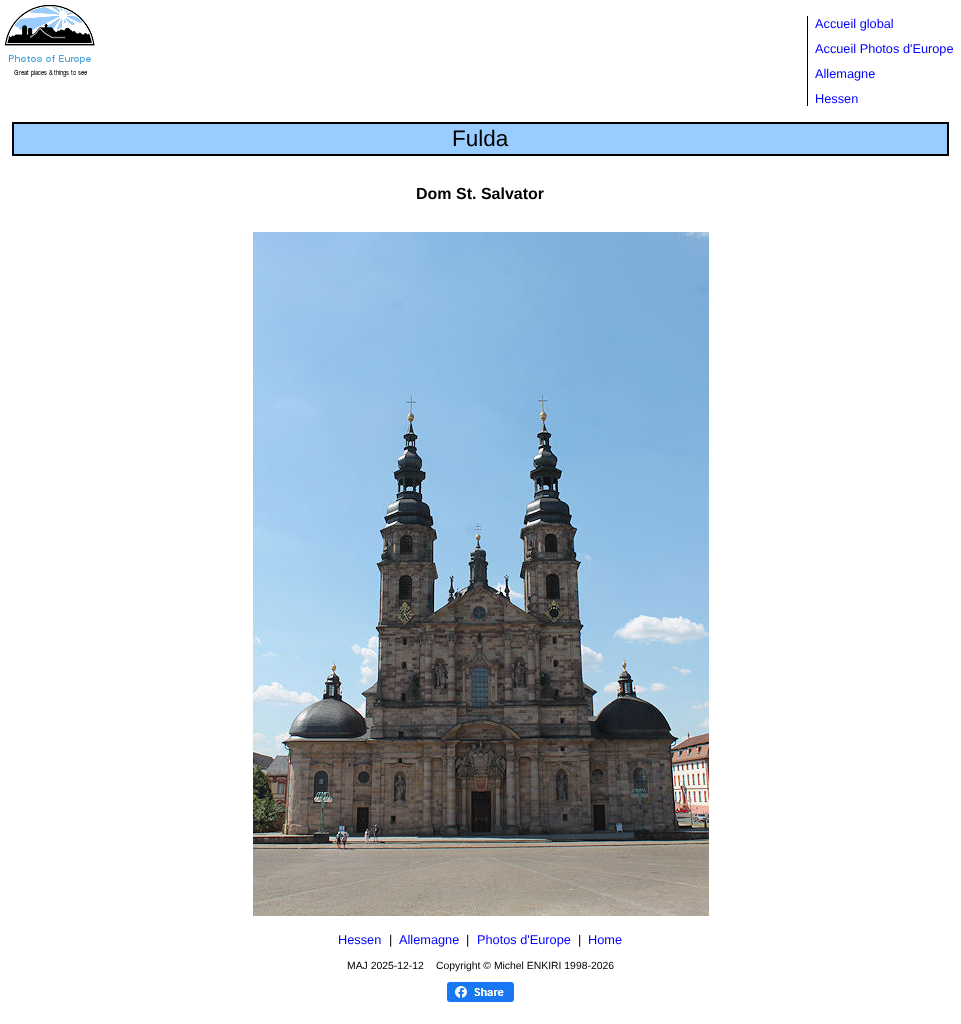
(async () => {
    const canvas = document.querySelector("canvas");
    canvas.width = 961;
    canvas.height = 1024;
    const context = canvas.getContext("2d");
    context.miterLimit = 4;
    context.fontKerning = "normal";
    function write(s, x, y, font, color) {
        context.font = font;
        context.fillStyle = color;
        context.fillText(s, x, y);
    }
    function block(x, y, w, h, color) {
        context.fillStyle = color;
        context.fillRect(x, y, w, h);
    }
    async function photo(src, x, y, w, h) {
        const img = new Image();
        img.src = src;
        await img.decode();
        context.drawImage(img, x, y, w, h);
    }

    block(0, 0, 961, 1024, "rgb(255, 255, 255)");
    await photo("media/1.png", 4, 5, 91, 72);
    block(807, 16, 1, 90, "rgb(0, 0, 0)");
    write("Accueil global", 815, 28, "12.75px Liberation Sans", "rgb(0, 0, 255)");
    write("Accueil Photos d'Europe", 815, 53, "12.75px Liberation Sans", "rgb(0, 0, 255)");
    write("Allemagne", 815, 78, "12.75px Liberation Sans", "rgb(0, 0, 255)");
    write("Hessen", 815, 103, "12.75px Liberation Sans", "rgb(0, 0, 255)");
    context.fillStyle = "rgb(153, 204, 255)";
    context.beginPath();
    context.rect(13, 123, 935, 32);
    context.fill();
    context.strokeStyle = "rgb(0, 0, 0)";
    context.lineWidth = 2;
    context.stroke();
    write("Fulda", 452, 146, "22.5px Liberation Sans", "rgb(0, 0, 0)");
    write("Dom St. Salvator", 416, 199, "bold 16px Liberation Sans", "rgb(0, 0, 0)");
    await photo("media/2.png", 253, 232, 456, 684);
    write("Hessen", 338, 944, "12.75px Liberation Sans", "rgb(0, 0, 255)");
    write("|", 389, 944, "12.75px Liberation Sans", "rgb(0, 0, 0)");
    write("Allemagne", 399, 944, "12.75px Liberation Sans", "rgb(0, 0, 255)");
    write("|", 466, 944, "12.75px Liberation Sans", "rgb(0, 0, 0)");
    write("Photos d'Europe", 477, 944, "12.75px Liberation Sans", "rgb(0, 0, 255)");
    write("|", 578, 944, "12.75px Liberation Sans", "rgb(0, 0, 0)");
    write("Home", 588, 944, "12.75px Liberation Sans", "rgb(0, 0, 255)");
    write("MAJ 2025-12-12", 347, 969, "10.4px Liberation Sans", "rgb(0, 0, 0)");
    write("Copyright © Michel ENKIRI 1998-2026", 436, 969, "10.4px Liberation Sans", "rgb(0, 0, 0)");
    await photo("media/3.png", 447, 982, 67, 20);
})();
